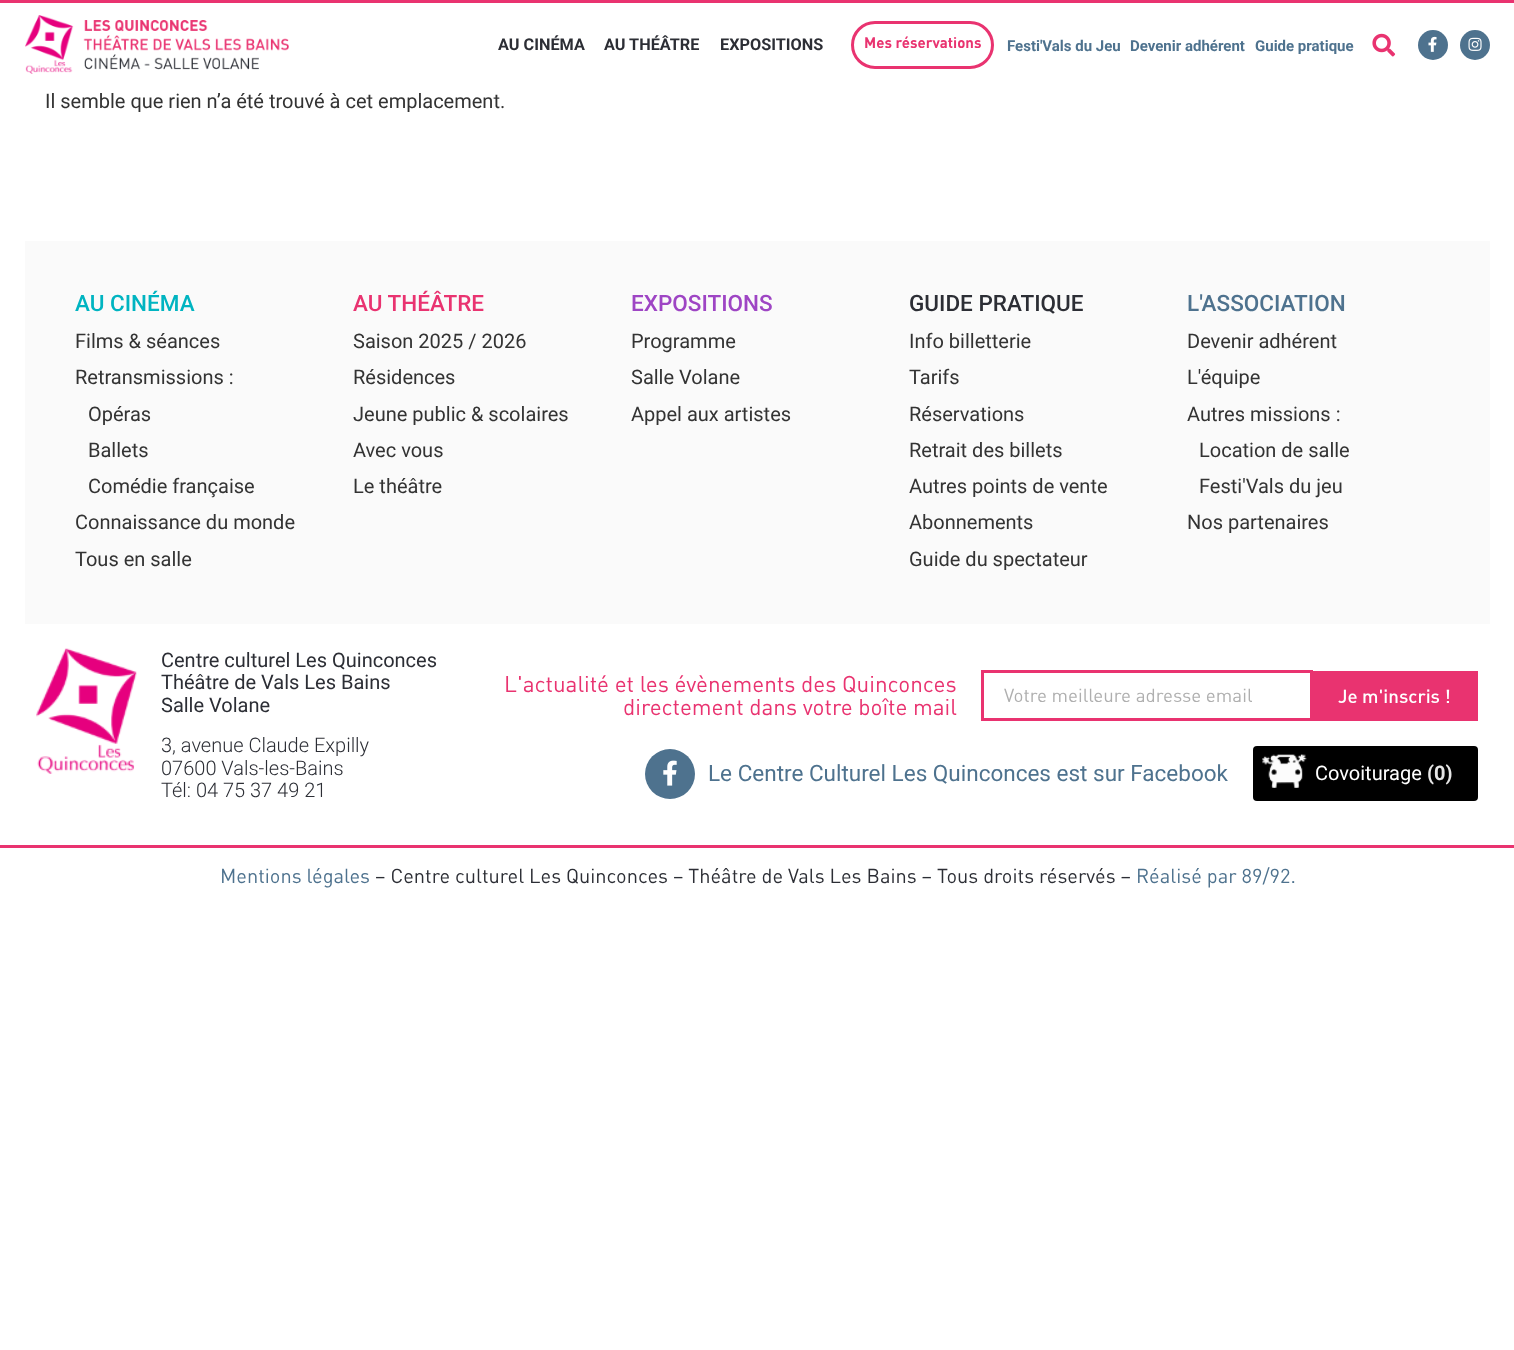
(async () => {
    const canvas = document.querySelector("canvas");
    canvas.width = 1514;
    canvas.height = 1350;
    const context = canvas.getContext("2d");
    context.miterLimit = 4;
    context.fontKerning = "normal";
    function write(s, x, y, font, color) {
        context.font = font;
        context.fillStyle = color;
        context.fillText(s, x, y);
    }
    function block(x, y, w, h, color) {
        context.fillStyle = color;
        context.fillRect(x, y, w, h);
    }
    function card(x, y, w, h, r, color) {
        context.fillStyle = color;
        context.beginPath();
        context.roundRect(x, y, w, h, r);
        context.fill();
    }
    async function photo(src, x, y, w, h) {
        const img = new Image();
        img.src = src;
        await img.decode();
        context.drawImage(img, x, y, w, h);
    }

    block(0, 0, 1514, 1350, "rgb(255, 255, 255)");
    block(0, 0, 1514, 3, "rgb(233, 51, 112)");
    await photo("media/1.png", 25, 15, 264, 59);
    write("AU CINÉMA", 498, 50, "bold 16.25px Roboto", "rgb(44, 46, 53)");
    write("AU THÉÂTRE", 604, 50, "bold 16.25px Roboto", "rgb(44, 46, 53)");
    write("EXPOSITIONS", 720, 50, "bold 16.25px Roboto", "rgb(44, 46, 53)");
    context.beginPath();
    context.roundRect(852.5, 22.5, 140, 45, 22.5);
    context.strokeStyle = "rgb(233, 51, 112)";
    context.lineWidth = 3;
    context.stroke();
    write("Mes réservations", 864, 48, "bold 15px DIN", "rgb(233, 51, 112)");
    write("Festi'Vals du Jeu", 1007, 51, "bold 15px Roboto", "rgb(78, 114, 142)");
    write("Devenir adhérent", 1130, 51, "bold 15px Roboto", "rgb(78, 114, 142)");
    write("Guide pratique", 1255, 51, "bold 15px Roboto", "rgb(78, 114, 142)");
    await photo("media/2.png", 1372, 33, 24, 24);
    context.beginPath();
    context.arc(1433, 45, 15, 0, Math.PI * 2);
    context.fill();
    await photo("media/3.png", 1428, 36, 9, 16);
    context.beginPath();
    context.arc(1475, 45, 15, 0, Math.PI * 2);
    context.fill();
    await photo("media/4.png", 1468, 37, 14, 14);
    write("Il semble que rien n’a été trouvé à cet emplacement.", 45, 108, "20px Roboto", "rgb(51, 51, 51)");
    block(25, 241, 1465, 383, "rgb(250, 250, 250)");
    write("AU CINÉMA", 75, 311, "500 22.5px Roboto", "rgb(0, 180, 193)");
    write("Films & séances", 75, 348, "20px Roboto", "rgb(51, 51, 51)");
    write("Retransmissions :", 75, 384, "20px Roboto", "rgb(51, 51, 51)");
    write("Opéras", 88, 421, "20px Roboto", "rgb(51, 51, 51)");
    write("Ballets", 88, 457, "20px Roboto", "rgb(51, 51, 51)");
    write("Comédie française", 88, 493, "20px Roboto", "rgb(51, 51, 51)");
    write("Connaissance du monde", 75, 529, "20px Roboto", "rgb(51, 51, 51)");
    write("Tous en salle", 75, 566, "20px Roboto", "rgb(51, 51, 51)");
    write("AU THÉÂTRE", 353, 311, "500 22.5px Roboto", "rgb(233, 51, 112)");
    write("Saison 2025 / 2026", 353, 348, "20px Roboto", "rgb(51, 51, 51)");
    write("Résidences", 353, 384, "20px Roboto", "rgb(51, 51, 51)");
    write("Jeune public & scolaires", 353, 421, "20px Roboto", "rgb(51, 51, 51)");
    write("Avec vous", 353, 457, "20px Roboto", "rgb(51, 51, 51)");
    write("Le théâtre", 353, 493, "20px Roboto", "rgb(51, 51, 51)");
    write("EXPOSITIONS", 631, 311, "500 22.5px Roboto", "rgb(158, 69, 196)");
    write("Programme", 631, 348, "20px Roboto", "rgb(51, 51, 51)");
    write("Salle Volane", 631, 384, "20px Roboto", "rgb(51, 51, 51)");
    write("Appel aux artistes", 631, 421, "20px Roboto", "rgb(51, 51, 51)");
    write("GUIDE PRATIQUE", 909, 311, "500 22.5px Roboto", "rgb(44, 46, 53)");
    write("Info billetterie", 909, 348, "20px Roboto", "rgb(51, 51, 51)");
    write("Tarifs", 909, 384, "20px Roboto", "rgb(51, 51, 51)");
    write("Réservations", 909, 421, "20px Roboto", "rgb(51, 51, 51)");
    write("Retrait des billets", 909, 457, "20px Roboto", "rgb(51, 51, 51)");
    write("Autres points de vente", 909, 493, "20px Roboto", "rgb(51, 51, 51)");
    write("Abonnements", 909, 529, "20px Roboto", "rgb(51, 51, 51)");
    write("Guide du spectateur", 909, 566, "20px Roboto", "rgb(51, 51, 51)");
    write("L'ASSOCIATION", 1187, 311, "500 22.5px Roboto", "rgb(78, 114, 142)");
    write("Devenir adhérent", 1187, 348, "20px Roboto", "rgb(51, 51, 51)");
    write("L'équipe", 1187, 384, "20px Roboto", "rgb(51, 51, 51)");
    write("Autres missions :", 1187, 421, "20px Roboto", "rgb(51, 51, 51)");
    write("Location de salle", 1199, 457, "20px Roboto", "rgb(51, 51, 51)");
    write("Festi'Vals du jeu", 1199, 493, "20px Roboto", "rgb(51, 51, 51)");
    write("Nos partenaires", 1187, 529, "20px Roboto", "rgb(51, 51, 51)");
    block(0, 845, 1514, 3, "rgb(233, 51, 112)");
    await photo("media/5.png", 36, 648, 101, 126);
    write("Centre culturel Les Quinconces", 161, 667, "20px Roboto", "rgb(44, 46, 53)");
    write("Théâtre de Vals Les Bains", 161, 689, "20px Roboto", "rgb(44, 46, 53)");
    write("Salle Volane", 161, 712, "20px Roboto", "rgb(44, 46, 53)");
    write("3, avenue Claude Expilly", 161, 752, "300 20px Roboto", "rgb(44, 46, 53)");
    write("07600 Vals-les-Bains", 161, 775, "300 20px Roboto", "rgb(44, 46, 53)");
    write("Tél: 04 75 37 49 21", 161, 797, "300 20px Roboto", "rgb(44, 46, 53)");
    write("L'actualité et les évènements des Quinconces", 504, 692, "22.5px DIN", "rgb(233, 51, 112)");
    write("directement dans votre boîte mail", 623, 715, "22.5px DIN", "rgb(233, 51, 112)");
    context.strokeRect(982.5, 671.5, 329, 48);
    write("Votre meilleure adresse email", 1004, 702, "18.75px DIN", "rgb(175, 175, 175)");
    block(1313, 671, 165, 50, "rgb(233, 51, 112)");
    write("Je m'inscris !", 1338, 703, "500 18.75px DIN", "rgb(255, 255, 255)");
    context.fillStyle = "rgb(78, 114, 142)";
    context.beginPath();
    context.arc(670, 774, 25, 0, Math.PI * 2);
    context.fill();
    await photo("media/6.png", 663, 760, 14, 26);
    write("Le Centre Culturel Les Quinconces est sur Facebook", 708, 781, "22.5px Roboto", "rgb(78, 114, 142)");
    card(1253, 746, 225, 55, 4, "rgb(0, 0, 0)");
    await photo("media/7.png", 1262, 754, 45, 34);
    write("Covoiturage", 1315, 780, "20px Roboto", "rgb(255, 255, 255)");
    write("(0)", 1427, 780, "bold 20px Roboto", "rgb(230, 230, 230)");
    write("Mentions légales", 220, 883, "20px DIN", "rgb(78, 114, 142)");
    write("– Centre culturel Les Quinconces – Théâtre de Vals Les Bains – Tous droits réservés –", 375, 883, "20px DIN", "rgb(44, 46, 53)");
    write("Réalisé par 89/92.", 1136, 883, "20px DIN", "rgb(78, 114, 142)");
})();
